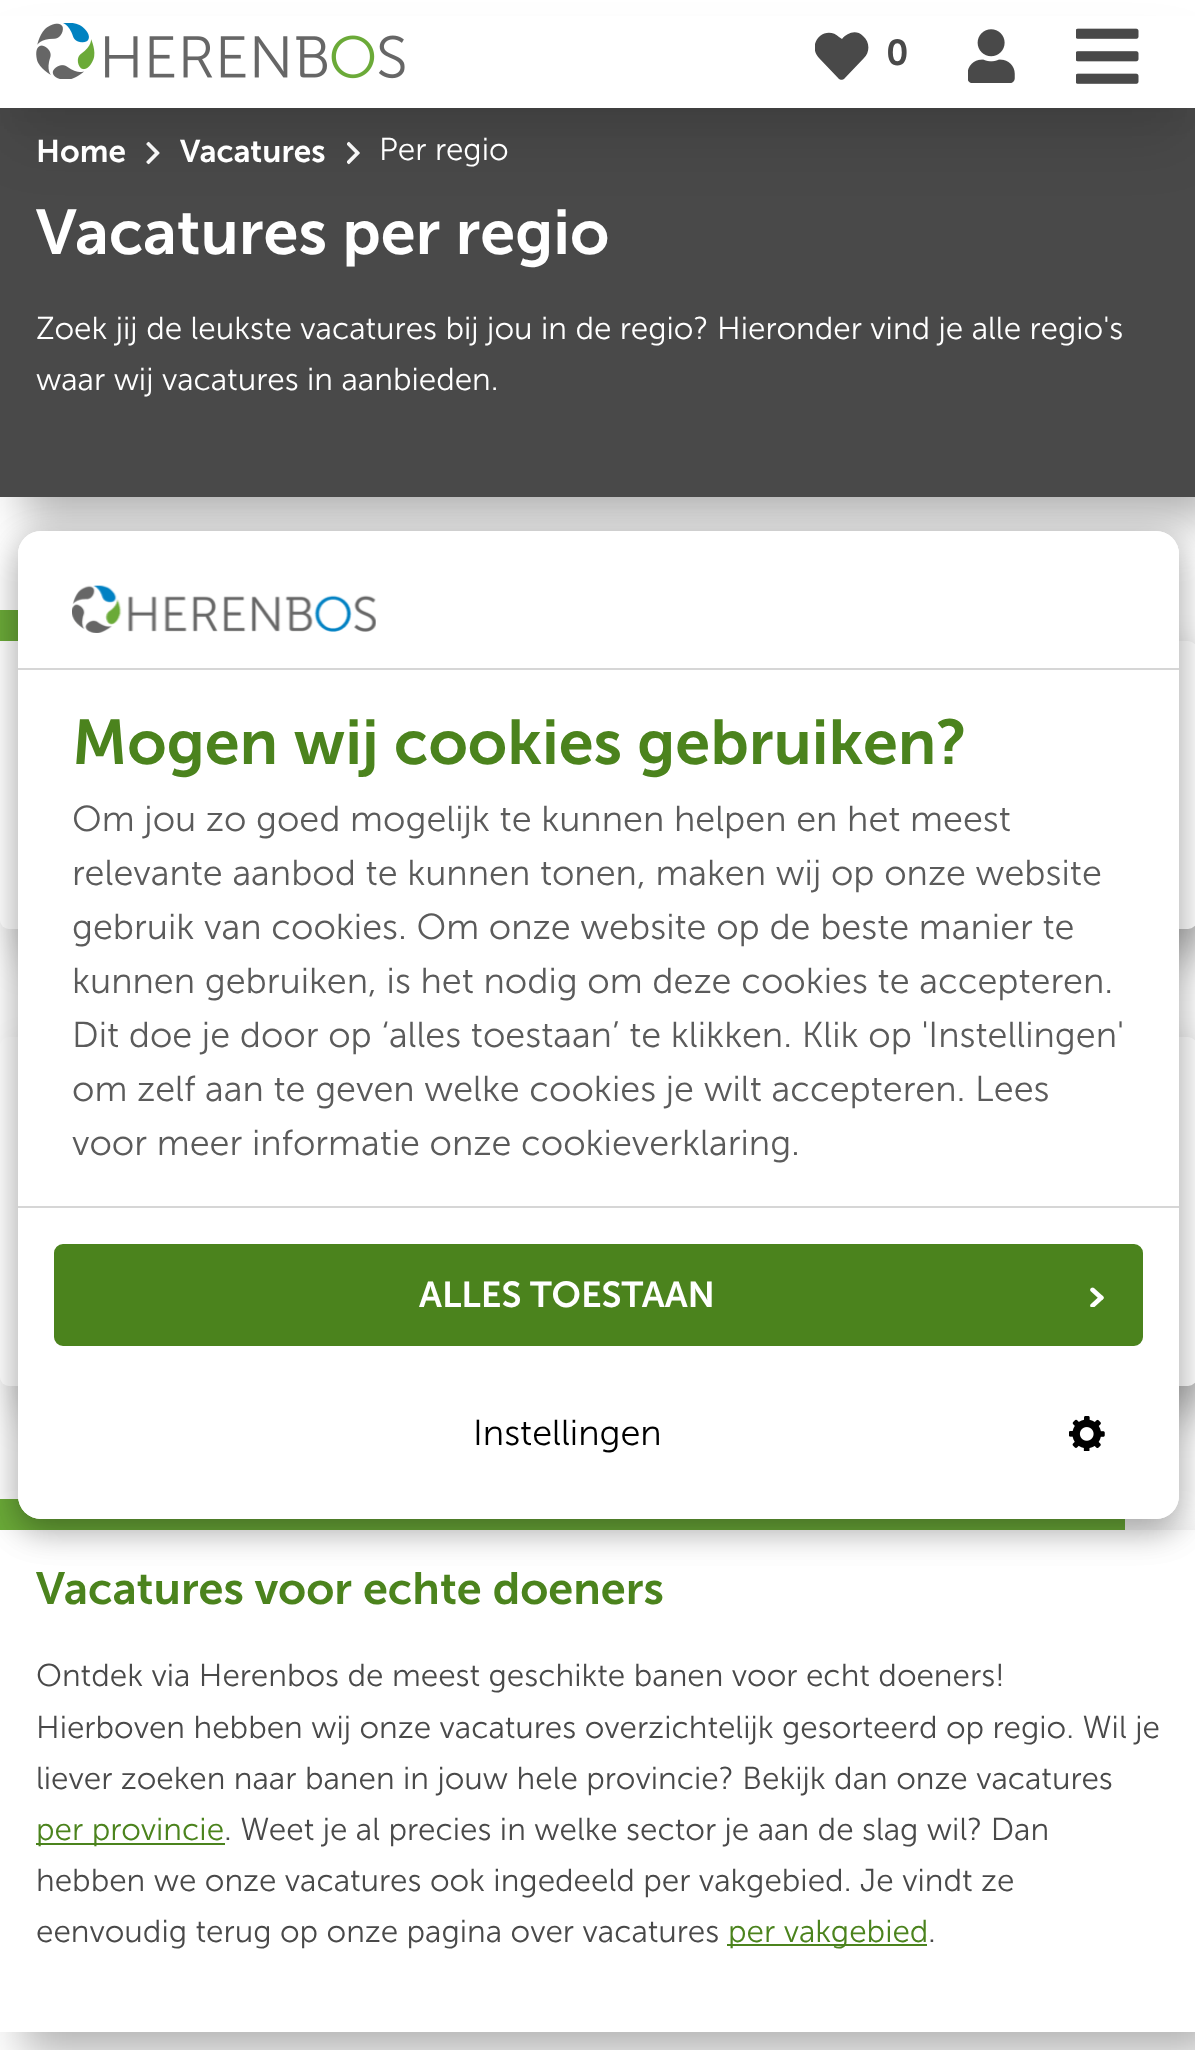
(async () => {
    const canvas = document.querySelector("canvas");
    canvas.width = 1195;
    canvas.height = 2050;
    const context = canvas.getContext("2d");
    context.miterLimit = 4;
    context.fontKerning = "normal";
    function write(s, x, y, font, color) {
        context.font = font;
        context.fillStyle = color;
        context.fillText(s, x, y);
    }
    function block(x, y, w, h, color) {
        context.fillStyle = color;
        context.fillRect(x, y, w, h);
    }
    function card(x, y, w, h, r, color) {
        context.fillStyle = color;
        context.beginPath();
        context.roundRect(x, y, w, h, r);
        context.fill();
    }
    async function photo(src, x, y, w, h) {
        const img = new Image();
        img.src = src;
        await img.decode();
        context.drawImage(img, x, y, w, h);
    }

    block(0, 0, 1195, 2050, "rgb(255, 255, 255)");
    context.fillStyle = "rgba(0, 0, 0, 0.3)";
    context.filter = "blur(22.5px)";
    context.beginPath();
    context.rect(23, 131, 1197, 389);
    context.fill();
    context.filter = "none";
    block(0, 108, 1195, 389, "rgb(73, 73, 73)");
    await photo("media/4.png", 146, 141, 14, 24);
    await photo("media/5.png", 347, 141, 13, 24);
    context.fillStyle = "rgba(0, 0, 0, 0.04)";
    context.filter = "blur(11px)";
    context.beginPath();
    context.rect(11, 34, 1175, 85);
    context.fill();
    context.filter = "none";
    context.fillStyle = "rgba(0, 0, 0, 0.1)";
    context.filter = "blur(28px)";
    context.beginPath();
    context.rect(11, 56, 1175, 86);
    context.fill();
    context.filter = "none";
    block(0, 16, 1195, 92, "rgb(255, 255, 255)");
    await photo("media/1.png", 36, 23, 369, 56);
    context.save();
    context.beginPath();
    context.rect(815, 29, 54, 54);
    context.clip();
    context.fillStyle = "rgb(73, 73, 73)";
    context.beginPath();
    context.moveTo(863, 36);
    context.bezierCurveTo(856, 29, 847, 33, 842, 39);
    context.lineTo(839, 37);
    context.bezierCurveTo(834, 32, 826, 31, 820, 36);
    context.bezierCurveTo(813, 42, 813, 52, 819, 58);
    context.lineTo(839, 79);
    context.bezierCurveTo(840, 80, 843, 80, 844, 79);
    context.lineTo(864, 58);
    context.bezierCurveTo(870, 52, 870, 42, 863, 36);
    context.closePath();
    context.fill();
    context.restore();
    write("0", 886, 65, "600 36px Museo Sans", "rgb(73, 73, 73)");
    await photo("media/2.png", 968, 29, 47, 54);
    await photo("media/3.png", 1076, 28, 63, 56);
    write("Home", 36, 162, "600 31.5px Museo Sans", "rgb(255, 255, 255)");
    write("Vacatures", 180, 162, "600 31.5px Museo Sans", "rgb(255, 255, 255)");
    write("Per regio", 379, 160, "300 31.5px Museo Sans", "rgb(255, 255, 255)");
    write("Vacatures per regio", 36, 254, "600 63px Museo Sans", "rgb(255, 255, 255)");
    write("Zoek jij de leukste vacatures bij jou in de regio? Hieronder vind je alle regio's", 36, 339, "300 31.5px Museo Sans", "rgb(255, 255, 255)");
    write("waar wij vacatures in aanbieden.", 36, 390, "300 31.5px Museo Sans", "rgb(255, 255, 255)");
    context.fillStyle = "rgba(0, 0, 0, 0.3)";
    context.filter = "blur(22.5px)";
    context.beginPath();
    context.roundRect(23, 664, 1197, 288, 9);
    context.fill();
    context.filter = "none";
    card(0, 641, 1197, 288, 9, "rgb(255, 255, 255)");
    block(0, 610, 18, 31, "rgb(107, 170, 56)");
    context.fillStyle = "rgba(0, 0, 0, 0.3)";
    context.filter = "blur(22.5px)";
    context.beginPath();
    context.roundRect(23, 1060, 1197, 349, 9);
    context.fill();
    context.filter = "none";
    card(0, 1037, 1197, 349, 9, "rgb(255, 255, 255)");
    context.fillStyle = "rgba(0, 0, 0, 0.3)";
    context.filter = "blur(22.5px)";
    context.beginPath();
    context.rect(23, 1553, 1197, 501);
    context.fill();
    context.filter = "none";
    block(0, 1530, 1195, 502, "rgb(255, 255, 255)");
    block(0, 1499, 1125, 31, "rgb(107, 170, 56)");
    write("Vacatures voor echte doeners", 36, 1604, "600 45px Museo Sans", "rgb(75, 131, 29)");
    write("Ontdek via Herenbos de meest geschikte banen voor echt doeners!", 36, 1686, "300 31.5px Museo Sans", "rgb(73, 73, 73)");
    write("Hierboven hebben wij onze vacatures overzichtelijk gesorteerd op regio. Wil je", 36, 1738, "300 31.5px Museo Sans", "rgb(73, 73, 73)");
    write("liever zoeken naar banen in jouw hele provincie? Bekijk dan onze vacatures", 36, 1789, "300 31.5px Museo Sans", "rgb(73, 73, 73)");
    block(36, 1843, 189, 2, "rgb(75, 131, 29)");
    write("per provincie", 36, 1840, "300 31.5px Museo Sans", "rgb(75, 131, 29)");
    write(". Weet je al precies in welke sector je aan de slag wil? Dan", 224, 1840, "300 31.5px Museo Sans", "rgb(73, 73, 73)");
    write("hebben we onze vacatures ook ingedeeld per vakgebied. Je vindt ze", 36, 1891, "300 31.5px Museo Sans", "rgb(73, 73, 73)");
    write("eenvoudig terug op onze pagina over vacatures", 36, 1942, "300 31.5px Museo Sans", "rgb(73, 73, 73)");
    block(727, 1944, 200, 2, "rgb(75, 131, 29)");
    write("per vakgebied", 728, 1942, "300 31.5px Museo Sans", "rgb(75, 131, 29)");
    write(".", 928, 1942, "300 31.5px Museo Sans", "rgb(73, 73, 73)");
    context.fillStyle = "rgba(0, 0, 0, 0.19)";
    context.filter = "blur(17px)";
    context.beginPath();
    context.roundRect(18, 542, 1161, 988, 23);
    context.fill();
    context.filter = "none";
    context.fillStyle = "rgba(0, 0, 0, 0.2)";
    context.filter = "blur(17px)";
    context.beginPath();
    context.roundRect(18, 542, 1161, 988, 23);
    context.fill();
    context.filter = "none";
    card(18, 531, 1161, 988, 23, "rgb(255, 255, 255)");
    context.beginPath();
    context.roundRect(18, 531, 1161, 140, [23, 23, 0, 0]);
    context.fill();
    block(18, 668, 1161, 2, "rgb(214, 214, 214)");
    await photo("media/6.png", 72, 585, 304, 48);
    write("Mogen wij cookies gebruiken?", 72, 764, "600 63px Museo Sans", "rgb(75, 131, 29)");
    write("Om jou zo goed mogelijk te kunnen helpen en het meest", 72, 831, "300 36px Museo Sans", "rgb(91, 91, 91)");
    write("relevante aanbod te kunnen tonen, maken wij op onze website", 72, 885, "300 36px Museo Sans", "rgb(91, 91, 91)");
    write("gebruik van cookies. Om onze website op de beste manier te", 72, 939, "300 36px Museo Sans", "rgb(91, 91, 91)");
    write("kunnen gebruiken, is het nodig om deze cookies te accepteren.", 72, 993, "300 36px Museo Sans", "rgb(91, 91, 91)");
    write("Dit doe je door op ‘alles toestaan’ te klikken. Klik op 'Instellingen'", 72, 1047, "300 36px Museo Sans", "rgb(91, 91, 91)");
    write("om zelf aan te geven welke cookies je wilt accepteren. Lees", 72, 1101, "300 36px Museo Sans", "rgb(91, 91, 91)");
    write("voor meer informatie onze cookieverklaring.", 72, 1155, "300 36px Museo Sans", "rgb(91, 91, 91)");
    context.fillStyle = "rgb(255, 255, 255)";
    context.beginPath();
    context.roundRect(18, 1206, 1161, 313, [0, 0, 23, 23]);
    context.fill();
    block(18, 1206, 1161, 2, "rgb(214, 214, 214)");
    context.fillStyle = "rgb(75, 131, 29)";
    context.beginPath();
    context.roundRect(55, 1245, 1087, 100, 8);
    context.fill();
    context.strokeStyle = "rgb(75, 131, 29)";
    context.lineWidth = 2;
    context.stroke();
    write("ALLES TOESTAAN", 419, 1307, "600 36px Museo Sans", "rgb(255, 255, 255)");
    await photo("media/7.png", 1090, 1287, 14, 20);
    write("Instellingen", 473, 1445, "300 36px Museo Sans", "rgb(0, 0, 0)");
    await photo("media/8.png", 1069, 1416, 36, 35);
})();
